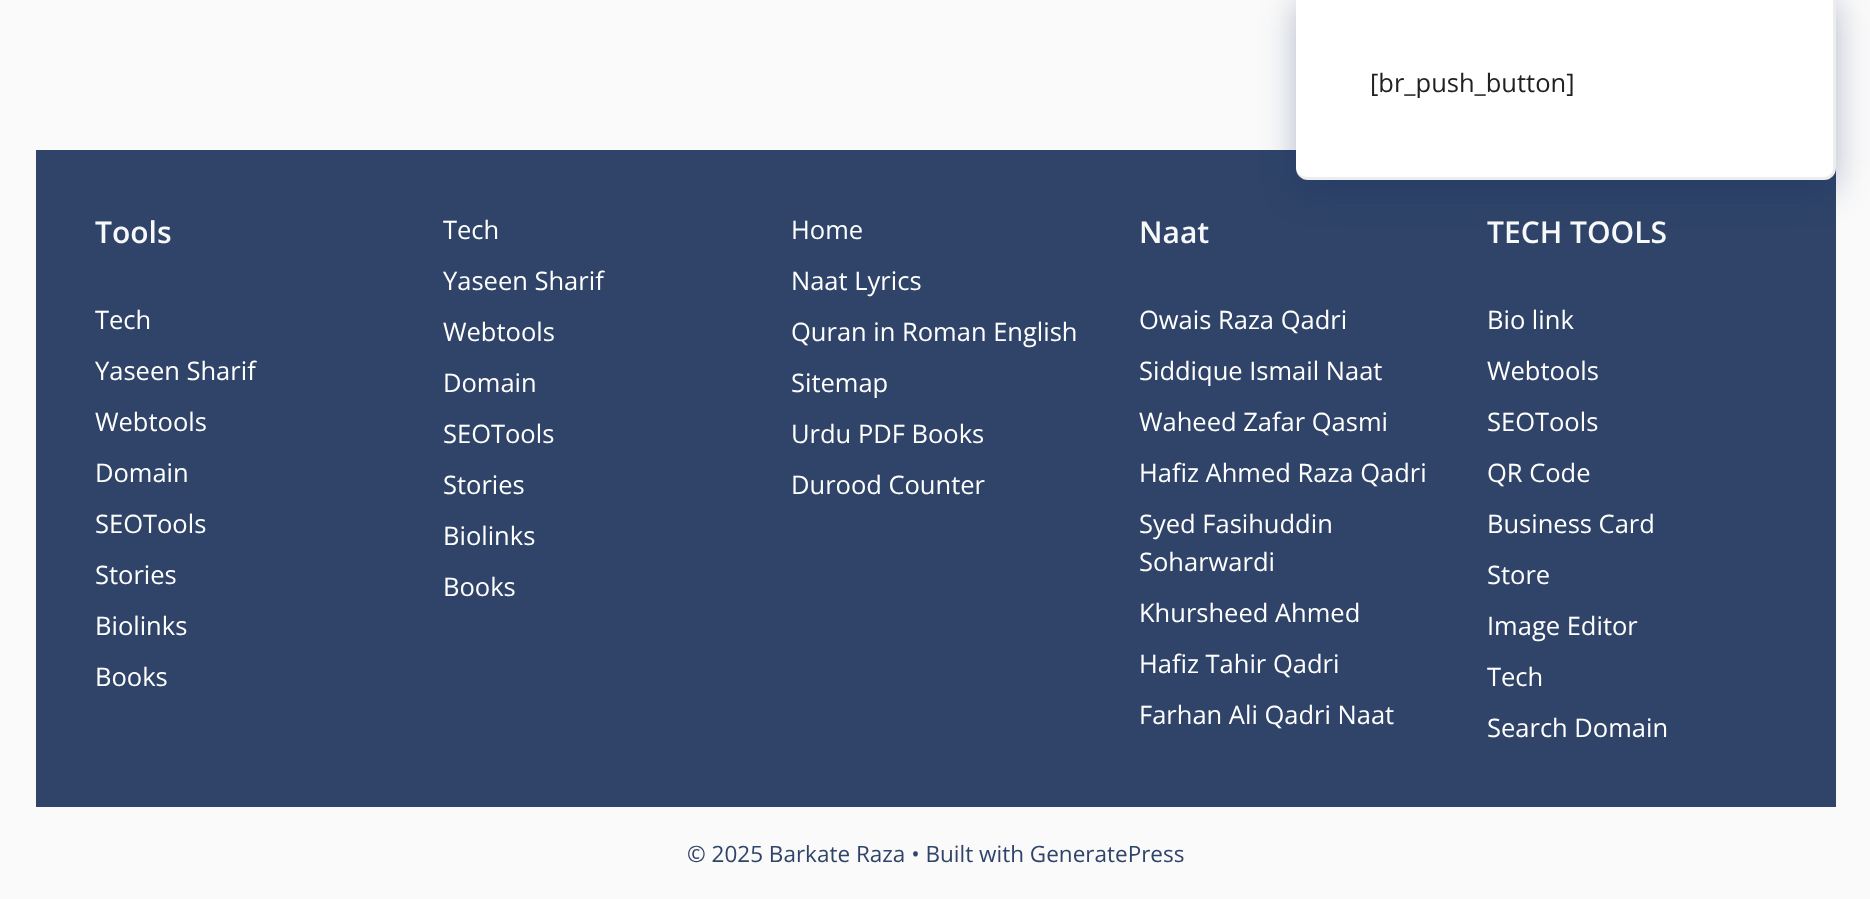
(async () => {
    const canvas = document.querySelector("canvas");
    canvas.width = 1870;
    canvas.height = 899;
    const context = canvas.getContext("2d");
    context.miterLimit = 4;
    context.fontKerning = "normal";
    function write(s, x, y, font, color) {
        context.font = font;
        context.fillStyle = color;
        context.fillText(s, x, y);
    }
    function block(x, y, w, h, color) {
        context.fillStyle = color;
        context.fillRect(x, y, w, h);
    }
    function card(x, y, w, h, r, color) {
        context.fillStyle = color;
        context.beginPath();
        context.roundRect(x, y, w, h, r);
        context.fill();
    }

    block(0, 0, 1870, 899, "rgb(250, 250, 250)");
    block(36, 150, 1800, 657, "rgb(47, 68, 104)");
    context.fillStyle = "rgba(23, 43, 99, 0.3)";
    context.filter = "blur(17px)";
    context.beginPath();
    context.roundRect(1296, 0, 540, 191, 12);
    context.fill();
    context.filter = "none";
    card(1296, -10, 540, 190, 12, "rgb(255, 255, 255)");
    context.fillStyle = "rgba(0, 0, 0, 0.07)";
    context.beginPath();
    context.moveTo(1308, -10);
    context.lineTo(1824, -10);
    context.bezierCurveTo(1831, -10, 1836, -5, 1836, 2);
    context.lineTo(1836, 168);
    context.bezierCurveTo(1836, 175, 1831, 180, 1824, 180);
    context.lineTo(1308, 180);
    context.bezierCurveTo(1301, 180, 1296, 175, 1296, 168);
    context.lineTo(1296, 2);
    context.bezierCurveTo(1296, -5, 1301, -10, 1308, -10);
    context.closePath();
    context.moveTo(1308, -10);
    context.lineTo(1824, -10);
    context.bezierCurveTo(1829, -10, 1833, -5, 1833, 2);
    context.lineTo(1833, 168);
    context.bezierCurveTo(1833, 173, 1829, 177, 1824, 177);
    context.lineTo(1308, 177);
    context.bezierCurveTo(1301, 177, 1296, 173, 1296, 168);
    context.lineTo(1296, 2);
    context.bezierCurveTo(1296, -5, 1301, -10, 1308, -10);
    context.closePath();
    context.fill("evenodd");
    write("[br_push_button]", 1370, 92, "25.5px Open Sans", "rgb(33, 33, 33)");
    write("Tools", 95, 243, "600 30px Open Sans", "rgb(247, 248, 249)");
    write("Tech", 95, 329, "25.5px Open Sans", "rgb(255, 255, 255)");
    write("Yaseen Sharif", 95, 380, "25.5px Open Sans", "rgb(255, 255, 255)");
    write("Webtools", 95, 431, "25.5px Open Sans", "rgb(255, 255, 255)");
    write("Domain", 95, 482, "25.5px Open Sans", "rgb(255, 255, 255)");
    write("SEOTools", 95, 533, "25.5px Open Sans", "rgb(255, 255, 255)");
    write("Stories", 95, 584, "25.5px Open Sans", "rgb(255, 255, 255)");
    write("Biolinks", 95, 635, "25.5px Open Sans", "rgb(255, 255, 255)");
    write("Books", 95, 686, "25.5px Open Sans", "rgb(255, 255, 255)");
    write("Tech", 443, 239, "25.5px Open Sans", "rgb(255, 255, 255)");
    write("Yaseen Sharif", 443, 290, "25.5px Open Sans", "rgb(255, 255, 255)");
    write("Webtools", 443, 341, "25.5px Open Sans", "rgb(255, 255, 255)");
    write("Domain", 443, 392, "25.5px Open Sans", "rgb(255, 255, 255)");
    write("SEOTools", 443, 443, "25.5px Open Sans", "rgb(255, 255, 255)");
    write("Stories", 443, 494, "25.5px Open Sans", "rgb(255, 255, 255)");
    write("Biolinks", 443, 545, "25.5px Open Sans", "rgb(255, 255, 255)");
    write("Books", 443, 596, "25.5px Open Sans", "rgb(255, 255, 255)");
    write("Home", 791, 239, "25.5px Open Sans", "rgb(255, 255, 255)");
    write("Naat Lyrics", 791, 290, "25.5px Open Sans", "rgb(255, 255, 255)");
    write("Quran in Roman English", 791, 341, "25.5px Open Sans", "rgb(255, 255, 255)");
    write("Sitemap", 791, 392, "25.5px Open Sans", "rgb(255, 255, 255)");
    write("Urdu PDF Books", 791, 443, "25.5px Open Sans", "rgb(255, 255, 255)");
    write("Durood Counter", 791, 494, "25.5px Open Sans", "rgb(255, 255, 255)");
    write("Naat", 1139, 243, "600 30px Open Sans", "rgb(247, 248, 249)");
    write("Owais Raza Qadri", 1139, 329, "25.5px Open Sans", "rgb(255, 255, 255)");
    write("Siddique Ismail Naat", 1139, 380, "25.5px Open Sans", "rgb(255, 255, 255)");
    write("Waheed Zafar Qasmi", 1139, 431, "25.5px Open Sans", "rgb(255, 255, 255)");
    write("Hafiz Ahmed Raza Qadri", 1139, 482, "25.5px Open Sans", "rgb(255, 255, 255)");
    write("Syed Fasihuddin", 1139, 533, "25.5px Open Sans", "rgb(255, 255, 255)");
    write("Soharwardi", 1139, 571, "25.5px Open Sans", "rgb(255, 255, 255)");
    write("Khursheed Ahmed", 1139, 622, "25.5px Open Sans", "rgb(255, 255, 255)");
    write("Hafiz Tahir Qadri", 1139, 673, "25.5px Open Sans", "rgb(255, 255, 255)");
    write("Farhan Ali Qadri Naat", 1139, 724, "25.5px Open Sans", "rgb(255, 255, 255)");
    write("TECH TOOLS", 1487, 243, "600 30px Open Sans", "rgb(247, 248, 249)");
    write("Bio link", 1487, 329, "25.5px Open Sans", "rgb(255, 255, 255)");
    write("Webtools", 1487, 380, "25.5px Open Sans", "rgb(255, 255, 255)");
    write("SEOTools", 1487, 431, "25.5px Open Sans", "rgb(255, 255, 255)");
    write("QR Code", 1487, 482, "25.5px Open Sans", "rgb(255, 255, 255)");
    write("Business Card", 1487, 533, "25.5px Open Sans", "rgb(255, 255, 255)");
    write("Store", 1487, 584, "25.5px Open Sans", "rgb(255, 255, 255)");
    write("Image Editor", 1487, 635, "25.5px Open Sans", "rgb(255, 255, 255)");
    write("Tech", 1487, 686, "25.5px Open Sans", "rgb(255, 255, 255)");
    write("Search Domain", 1487, 737, "25.5px Open Sans", "rgb(255, 255, 255)");
    write("© 2025 Barkate Raza • Built with GeneratePress", 687, 862, "22.5px Open Sans", "rgb(47, 68, 104)");
})();
